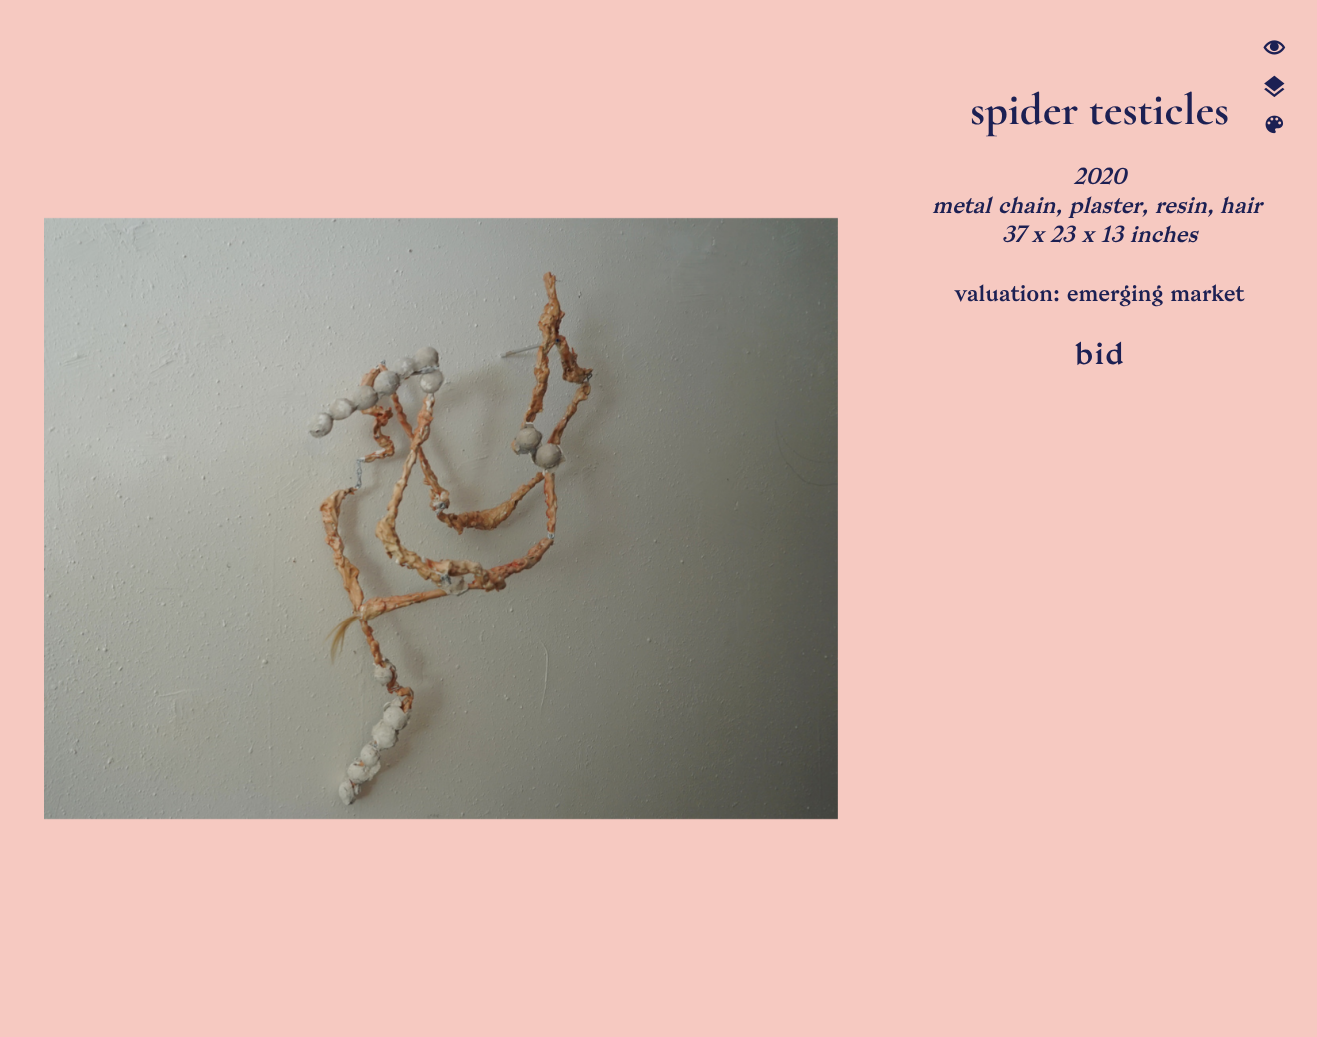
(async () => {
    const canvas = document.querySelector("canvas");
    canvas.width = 1317;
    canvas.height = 1037;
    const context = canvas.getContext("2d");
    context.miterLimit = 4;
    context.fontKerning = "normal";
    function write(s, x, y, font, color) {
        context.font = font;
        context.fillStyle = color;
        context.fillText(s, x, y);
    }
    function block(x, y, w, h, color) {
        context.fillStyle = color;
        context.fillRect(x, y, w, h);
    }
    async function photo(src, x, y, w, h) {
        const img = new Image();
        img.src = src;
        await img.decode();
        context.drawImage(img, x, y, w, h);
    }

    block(0, 0, 1317, 1037, "rgb(246, 201, 193)");
    await photo("media/1.png", 44, 217, 794, 603);
    write("spider testicles", 970, 124, "bold 44.75px Cormorant", "rgb(28, 32, 83)");
    write("2020", 1074, 184, "italic 22.4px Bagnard", "rgb(28, 32, 83)");
    write("metal chain, plaster, resin, hair", 932, 213, "italic 22.4px Bagnard", "rgb(28, 32, 83)");
    write("37 x 23 x 13 inches", 1002, 242, "italic 22.4px Bagnard", "rgb(28, 32, 83)");
    write("valuation: emerging market", 955, 301, "22.4px Bagnard", "rgb(28, 32, 83)");
    context.letterSpacing = "1.5px";
    write("bid", 1075, 364, "30px Bagnard", "rgb(28, 32, 83)");
    await photo("media/2.png", 1263, 40, 23, 15);
    await photo("media/3.png", 1264, 75, 21, 23);
    await photo("media/4.png", 1265, 115, 19, 19);
})();
